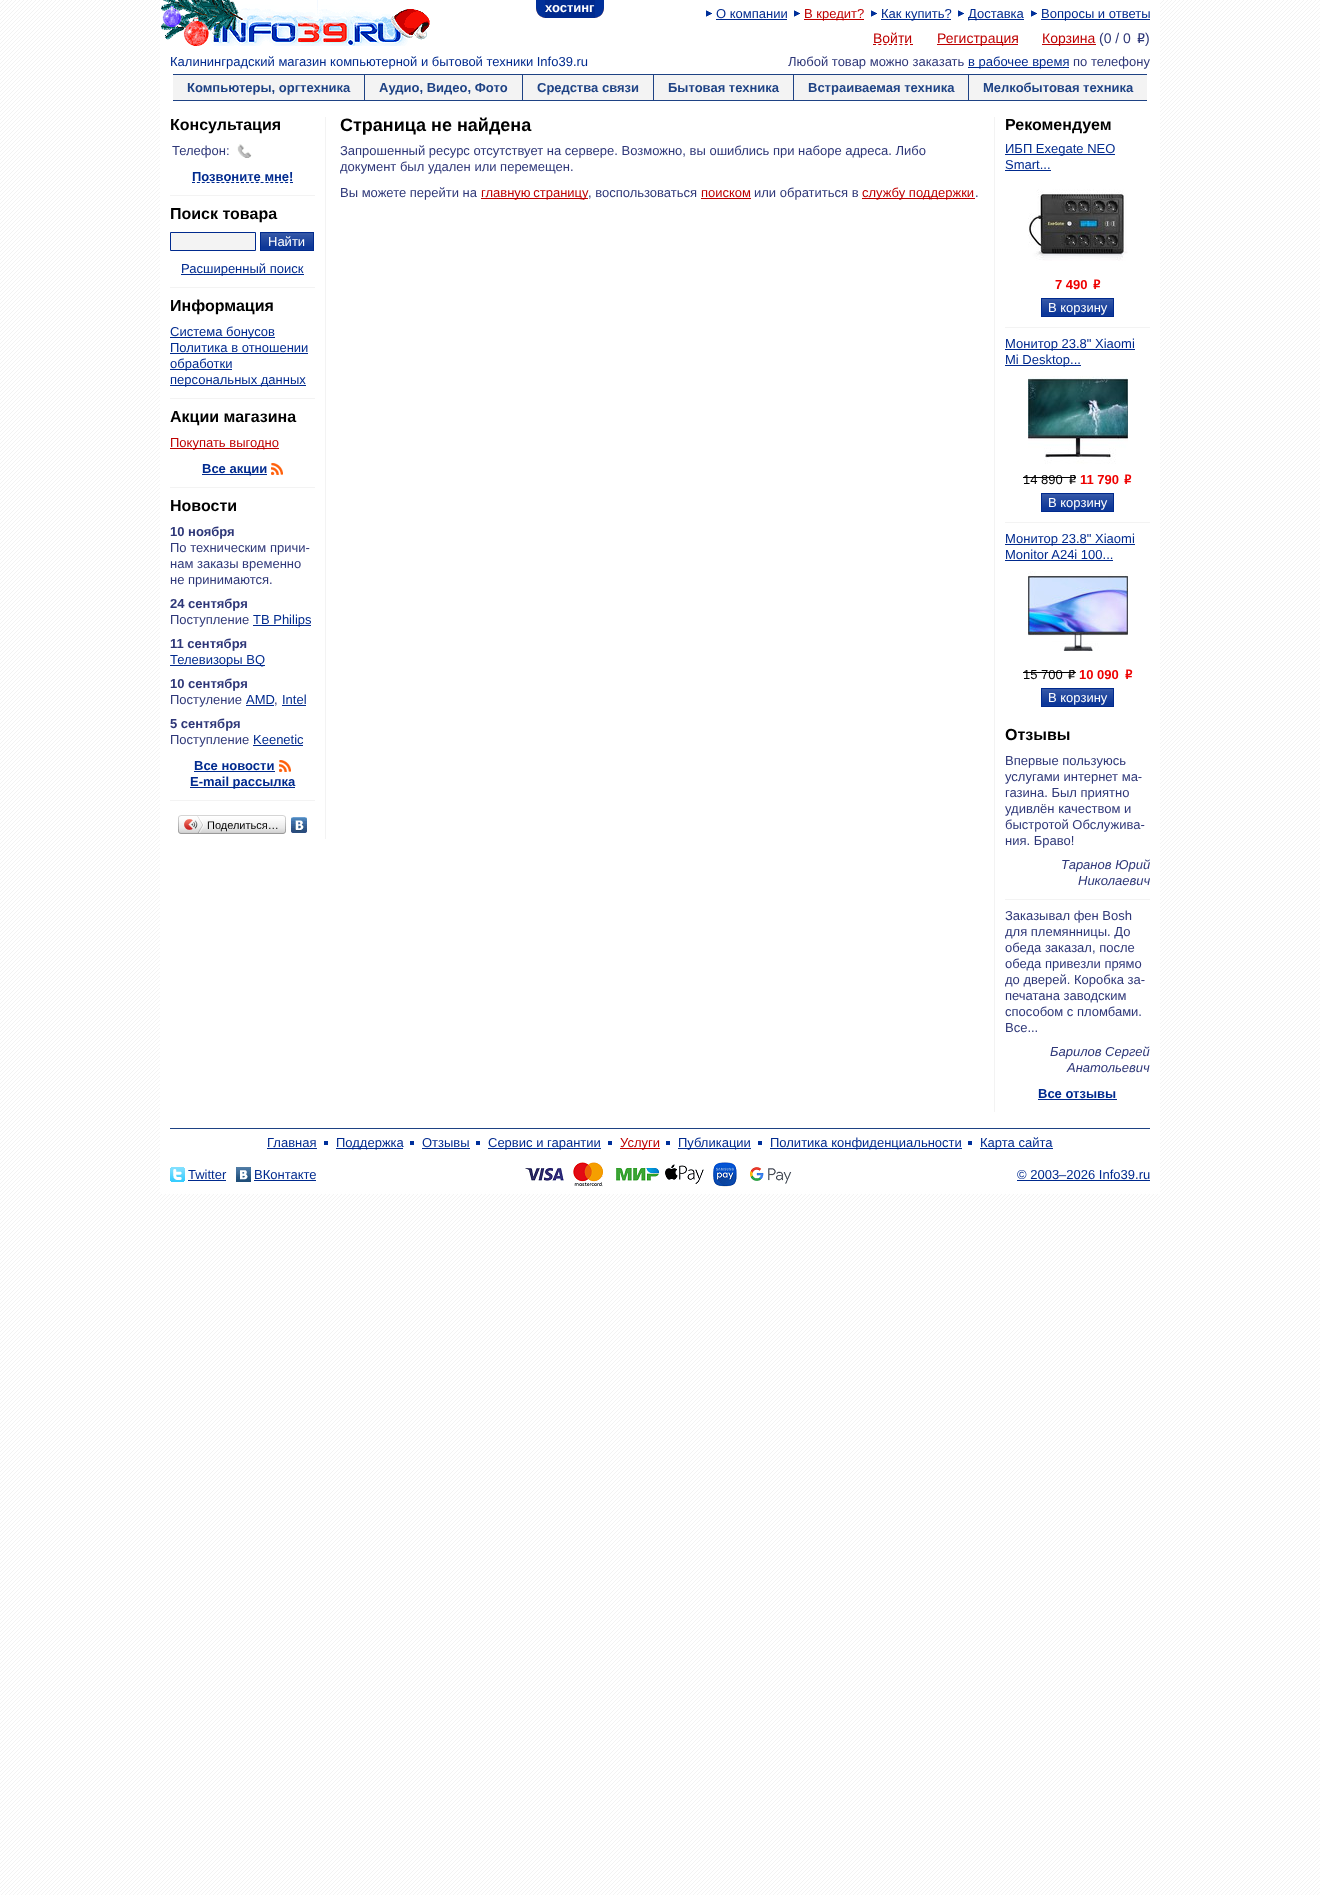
(async () => {
    const canvas = document.querySelector("canvas");
    canvas.width = 1320;
    canvas.height = 1895;
    const context = canvas.getContext("2d");
    context.miterLimit = 4;
    context.fontKerning = "normal";
    function write(s, x, y, font, color) {
        context.font = font;
        context.fillStyle = color;
        context.fillText(s, x, y);
    }
    function block(x, y, w, h, color) {
        context.fillStyle = color;
        context.fillRect(x, y, w, h);
    }
    async function photo(src, x, y, w, h) {
        const img = new Image();
        img.src = src;
        await img.decode();
        context.drawImage(img, x, y, w, h);
    }

    block(0, 0, 1320, 1895, "rgb(255, 255, 255)");
    await photo("media/1.png", 0, 0, 1320, 1895);
    block(160, 0, 1000, 1194, "rgb(255, 255, 255)");
    block(545, 0, 50, 18, "rgb(0, 42, 142)");
    await photo("media/2.png", 536, 0, 9, 18);
    await photo("media/3.png", 595, 0, 9, 18);
    write("хостинг", 545, 12, "bold 13px Liberation Sans", "rgb(255, 255, 255)");
    await photo("media/4.png", 160, 0, 270, 46);
    await photo("media/5.png", 706, 10, 6, 7);
    write("О компании", 716, 18, "13px Liberation Sans", "rgb(0, 42, 142)");
    block(716, 19, 71, 1, "rgb(0, 42, 142)");
    await photo("media/5.png", 794, 10, 6, 7);
    block(804, 19, 60, 1, "rgb(190, 0, 0)");
    write("В кредит?", 804, 18, "13px Liberation Sans", "rgb(190, 0, 0)");
    await photo("media/5.png", 871, 10, 6, 7);
    block(881, 19, 70, 1, "rgb(0, 42, 142)");
    write("Как купить?", 881, 18, "13px Liberation Sans", "rgb(0, 42, 142)");
    await photo("media/5.png", 958, 10, 6, 7);
    block(968, 19, 56, 1, "rgb(0, 42, 142)");
    write("Доставка", 968, 18, "13px Liberation Sans", "rgb(0, 42, 142)");
    await photo("media/5.png", 1031, 10, 6, 7);
    block(1041, 19, 109, 1, "rgb(0, 42, 142)");
    write("Вопросы и ответы", 1041, 18, "13px Liberation Sans", "rgb(0, 42, 142)");
    context.beginPath();
    context.moveTo(873, 44.5);
    context.lineTo(913, 44.5);
    context.strokeStyle = "rgb(190, 0, 0)";
    context.setLineDash([3, 2.29]);
    context.stroke();
    write("Войти", 873, 43, "14px Liberation Sans", "rgb(190, 0, 0)");
    block(937, 44, 81, 1, "rgb(190, 0, 0)");
    write("Регистрация", 937, 43, "14px Liberation Sans", "rgb(190, 0, 0)");
    block(1042, 44, 54, 1, "rgb(190, 0, 0)");
    write("Корзина", 1042, 43, "14px Liberation Sans", "rgb(190, 0, 0)");
    write("(0 / 0", 1099, 43, "14px Liberation Sans", "rgb(46, 55, 120)");
    write("P", 1135, 43, "14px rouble", "rgb(46, 55, 120)");
    write(")", 1145, 43, "14px Liberation Sans", "rgb(46, 55, 120)");
    write("Калининградский магазин компьютерной и бытовой техники Info39.ru", 170, 66, "13px Liberation Sans", "rgb(0, 42, 142)");
    write("Любой товар можно заказать", 788, 66, "13px Liberation Sans", "rgb(46, 55, 120)");
    block(968, 67, 101, 1, "rgb(0, 42, 142)");
    write("в рабочее время", 968, 66, "13px Liberation Sans", "rgb(0, 42, 142)");
    write("по телефону", 1073, 66, "13px Liberation Sans", "rgb(46, 55, 120)");
    block(173, 75, 191, 25, "rgb(243, 243, 243)");
    block(173, 74, 974, 1, "rgb(30, 66, 132)");
    block(173, 100, 974, 1, "rgb(30, 66, 132)");
    write("Компьютеры, оргтехника", 187, 92, "bold 13px Liberation Sans", "rgb(30, 66, 132)");
    block(365, 75, 157, 25, "rgb(243, 243, 243)");
    block(364, 75, 1, 25, "rgb(30, 66, 132)");
    write("Аудио, Видео, Фото", 379, 92, "bold 13px Liberation Sans", "rgb(30, 66, 132)");
    block(523, 75, 130, 25, "rgb(243, 243, 243)");
    block(522, 75, 1, 25, "rgb(30, 66, 132)");
    write("Средства связи", 537, 92, "bold 13px Liberation Sans", "rgb(30, 66, 132)");
    block(654, 75, 139, 25, "rgb(243, 243, 243)");
    block(653, 75, 1, 25, "rgb(30, 66, 132)");
    write("Бытовая техника", 668, 92, "bold 13px Liberation Sans", "rgb(30, 66, 132)");
    block(794, 75, 174, 25, "rgb(243, 243, 243)");
    block(793, 75, 1, 25, "rgb(30, 66, 132)");
    write("Встраиваемая техника", 808, 92, "bold 13px Liberation Sans", "rgb(30, 66, 132)");
    block(969, 75, 178, 25, "rgb(243, 243, 243)");
    block(968, 75, 1, 25, "rgb(30, 66, 132)");
    write("Мелкобытовая техника", 983, 92, "bold 13px Liberation Sans", "rgb(30, 66, 132)");
    block(325, 117, 1, 722, "rgb(243, 243, 243)");
    write("Консультация", 170, 130, "bold 16px Liberation Sans", "rgb(0, 0, 0)");
    write("Телефон:", 172, 155, "13px Liberation Sans", "rgb(46, 55, 120)");
    await photo("media/6.png", 237, 144, 15, 14);
    context.beginPath();
    context.moveTo(192, 182.5);
    context.lineTo(293, 182.5);
    context.strokeStyle = "rgb(0, 42, 142)";
    context.setLineDash([3, 1.9]);
    context.stroke();
    write("Позвоните мне!", 192, 181, "bold 13px Liberation Sans", "rgb(0, 42, 142)");
    block(170, 195, 145, 1, "rgb(243, 243, 243)");
    write("Поиск товара", 170, 219, "bold 16px Liberation Sans", "rgb(0, 0, 0)");
    context.fillStyle = "rgb(243, 243, 243)";
    context.beginPath();
    context.rect(170.5, 232.5, 85, 18);
    context.fill();
    context.setLineDash([]);
    context.stroke();
    block(261, 233, 52, 2, "rgb(53, 87, 166)");
    await photo("media/7.png", 261, 235, 52, 15);
    context.strokeRect(260.5, 232.5, 53, 18);
    write("Найти", 268, 246, "13px Liberation Sans", "rgb(255, 255, 255)");
    block(181, 274, 123, 1, "rgb(0, 42, 142)");
    write("Расширенный поиск", 181, 273, "13px Liberation Sans", "rgb(0, 42, 142)");
    block(170, 287, 145, 1, "rgb(243, 243, 243)");
    write("Информация", 170, 311, "bold 16px Liberation Sans", "rgb(0, 0, 0)");
    block(170, 337, 105, 1, "rgb(0, 42, 142)");
    write("Система бонусов", 170, 336, "13px Liberation Sans", "rgb(0, 42, 142)");
    write("Политика в отношении", 170, 352, "13px Liberation Sans", "rgb(0, 42, 142)");
    block(170, 353, 138, 1, "rgb(0, 42, 142)");
    block(170, 369, 62, 1, "rgb(0, 42, 142)");
    write("обработки", 170, 368, "13px Liberation Sans", "rgb(0, 42, 142)");
    block(170, 385, 136, 1, "rgb(0, 42, 142)");
    write("персональных данных", 170, 384, "13px Liberation Sans", "rgb(0, 42, 142)");
    block(170, 398, 145, 1, "rgb(243, 243, 243)");
    write("Акции магазина", 170, 422, "bold 16px Liberation Sans", "rgb(0, 0, 0)");
    block(170, 448, 109, 1, "rgb(190, 0, 0)");
    write("Покупать выгодно", 170, 447, "13px Liberation Sans", "rgb(190, 0, 0)");
    block(202, 474, 65, 1, "rgb(0, 42, 142)");
    write("Все акции", 202, 473, "bold 13px Liberation Sans", "rgb(0, 42, 142)");
    await photo("media/8.png", 271, 463, 12, 12);
    block(170, 487, 145, 1, "rgb(243, 243, 243)");
    write("Новости", 170, 511, "bold 16px Liberation Sans", "rgb(0, 0, 0)");
    write("10 ноября", 170, 536, "bold 13px Liberation Sans", "rgb(46, 55, 120)");
    write("По техническим причи-", 170, 552, "13px Liberation Sans", "rgb(46, 55, 120)");
    write("нам заказы временно", 170, 568, "13px Liberation Sans", "rgb(46, 55, 120)");
    write("не принимаются.", 170, 584, "13px Liberation Sans", "rgb(46, 55, 120)");
    write("24 сентября", 170, 608, "bold 13px Liberation Sans", "rgb(46, 55, 120)");
    write("Поступление", 170, 624, "13px Liberation Sans", "rgb(46, 55, 120)");
    block(253, 625, 58, 1, "rgb(0, 42, 142)");
    write("ТВ Philips", 253, 624, "13px Liberation Sans", "rgb(0, 42, 142)");
    write("11 сентября", 170, 648, "bold 13px Liberation Sans", "rgb(46, 55, 120)");
    block(170, 665, 95, 1, "rgb(0, 42, 142)");
    write("Телевизоры BQ", 170, 664, "13px Liberation Sans", "rgb(0, 42, 142)");
    write("10 сентября", 170, 688, "bold 13px Liberation Sans", "rgb(46, 55, 120)");
    write("Постуление", 170, 704, "13px Liberation Sans", "rgb(46, 55, 120)");
    write("AMD", 246, 704, "13px Liberation Sans", "rgb(0, 42, 142)");
    block(246, 705, 28, 1, "rgb(0, 42, 142)");
    write(",", 274, 704, "13px Liberation Sans", "rgb(46, 55, 120)");
    write("Intel", 282, 704, "13px Liberation Sans", "rgb(0, 42, 142)");
    block(282, 705, 24, 1, "rgb(0, 42, 142)");
    write("5 сентября", 170, 728, "bold 13px Liberation Sans", "rgb(46, 55, 120)");
    write("Поступление", 170, 744, "13px Liberation Sans", "rgb(46, 55, 120)");
    write("Keenetic", 253, 744, "13px Liberation Sans", "rgb(0, 42, 142)");
    block(253, 745, 50, 1, "rgb(0, 42, 142)");
    write("Все новости", 194, 770, "bold 13px Liberation Sans", "rgb(0, 42, 142)");
    block(194, 771, 81, 1, "rgb(0, 42, 142)");
    await photo("media/8.png", 279, 760, 12, 12);
    block(190, 787, 105, 1, "rgb(0, 42, 142)");
    write("E-mail рассылка", 190, 786, "bold 13px Liberation Sans", "rgb(0, 42, 142)");
    block(170, 800, 145, 1, "rgb(243, 243, 243)");
    await photo("media/9.png", 181, 815, 102, 19);
    await photo("media/10.png", 178, 815, 3, 19);
    await photo("media/11.png", 184, 816, 20, 17);
    write("Поделиться…", 207, 829, "11px Liberation Sans", "rgb(0, 0, 0)");
    await photo("media/12.png", 283, 815, 3, 19);
    await photo("media/13.png", 291, 817, 16, 16);
    write("Страница не найдена", 340, 131, "bold 18px Liberation Sans", "rgb(0, 0, 0)");
    write("Запрошенный ресурс отсутствует на сервере. Возможно, вы ошиблись при наборе адреса. Либо", 340, 155, "13px Liberation Sans", "rgb(46, 55, 120)");
    write("документ был удален или перемещен.", 340, 171, "13px Liberation Sans", "rgb(46, 55, 120)");
    write("Вы можете перейти на", 340, 197, "13px Liberation Sans", "rgb(46, 55, 120)");
    block(481, 198, 107, 1, "rgb(190, 0, 0)");
    context.wordSpacing = "-1px";
    write("главную страницу", 481, 197, "13px Liberation Sans", "rgb(190, 0, 0)");
    context.wordSpacing = "0px";
    write(", воспользоваться", 588, 197, "13px Liberation Sans", "rgb(46, 55, 120)");
    write("поиском", 701, 197, "13px Liberation Sans", "rgb(190, 0, 0)");
    block(701, 198, 50, 1, "rgb(190, 0, 0)");
    write("или обратиться в", 754, 197, "13px Liberation Sans", "rgb(46, 55, 120)");
    block(862, 198, 113, 1, "rgb(190, 0, 0)");
    write("службу поддержки", 862, 197, "13px Liberation Sans", "rgb(190, 0, 0)");
    write(".", 975, 197, "13px Liberation Sans", "rgb(46, 55, 120)");
    block(994, 117, 1, 995, "rgb(243, 243, 243)");
    write("Рекомендуем", 1005, 130, "bold 16px Liberation Sans", "rgb(0, 0, 0)");
    block(1005, 154, 110, 1, "rgb(0, 42, 142)");
    write("ИБП Exegate NEO", 1005, 153, "13px Liberation Sans", "rgb(0, 42, 142)");
    write("Smart...", 1005, 169, "13px Liberation Sans", "rgb(0, 42, 142)");
    block(1005, 170, 46, 1, "rgb(0, 42, 142)");
    block(1005, 327, 145, 1, "rgb(243, 243, 243)");
    await photo("media/14.png", 1028, 189, 100, 72);
    write("7 490", 1055, 289, "bold 13px Liberation Sans", "rgb(238, 0, 0)");
    write("P", 1091, 289, "bold 13px rouble", "rgb(238, 0, 0)");
    block(1042, 299, 71, 2, "rgb(53, 87, 166)");
    await photo("media/15.png", 1042, 301, 71, 15);
    context.strokeRect(1041.5, 298.5, 72, 18);
    write("В корзину", 1048, 312, "13px Liberation Sans", "rgb(255, 255, 255)");
    block(1005, 349, 130, 1, "rgb(0, 42, 142)");
    write("Монитор 23.8\" Xiaomi", 1005, 348, "13px Liberation Sans", "rgb(0, 42, 142)");
    block(1005, 365, 76, 1, "rgb(0, 42, 142)");
    write("Mi Desktop...", 1005, 364, "13px Liberation Sans", "rgb(0, 42, 142)");
    block(1005, 522, 145, 1, "rgb(243, 243, 243)");
    await photo("media/16.png", 1028, 376, 100, 88);
    block(1023, 477, 53, 1, "rgb(0, 0, 0)");
    write("14 890", 1023, 484, "13px Liberation Sans", "rgb(0, 0, 0)");
    write("P", 1067, 484, "13px rouble", "rgb(0, 0, 0)");
    write("11 790", 1080, 484, "bold 13px Liberation Sans", "rgb(238, 0, 0)");
    write("P", 1122, 484, "bold 13px rouble", "rgb(238, 0, 0)");
    block(1042, 494, 71, 2, "rgb(53, 87, 166)");
    await photo("media/15.png", 1042, 496, 71, 15);
    context.strokeRect(1041.5, 493.5, 72, 18);
    write("В корзину", 1048, 507, "13px Liberation Sans", "rgb(255, 255, 255)");
    block(1005, 544, 130, 1, "rgb(0, 42, 142)");
    write("Монитор 23.8\" Xiaomi", 1005, 543, "13px Liberation Sans", "rgb(0, 42, 142)");
    write("Monitor A24i 100...", 1005, 559, "13px Liberation Sans", "rgb(0, 42, 142)");
    block(1005, 560, 108, 1, "rgb(0, 42, 142)");
    await photo("media/17.png", 1028, 571, 100, 80);
    block(1023, 672, 53, 1, "rgb(0, 0, 0)");
    write("15 700", 1023, 679, "13px Liberation Sans", "rgb(0, 0, 0)");
    write("P", 1066, 679, "13px rouble", "rgb(0, 0, 0)");
    write("10 090", 1079, 679, "bold 13px Liberation Sans", "rgb(238, 0, 0)");
    write("P", 1123, 679, "bold 13px rouble", "rgb(238, 0, 0)");
    block(1042, 689, 71, 2, "rgb(53, 87, 166)");
    await photo("media/15.png", 1042, 691, 71, 15);
    context.strokeRect(1041.5, 688.5, 72, 18);
    write("В корзину", 1048, 702, "13px Liberation Sans", "rgb(255, 255, 255)");
    write("Отзывы", 1005, 740, "bold 16px Liberation Sans", "rgb(0, 0, 0)");
    write("Впервые пользуюсь", 1005, 765, "13px Liberation Sans", "rgb(46, 55, 120)");
    write("услугами интернет ма-", 1005, 781, "13px Liberation Sans", "rgb(46, 55, 120)");
    write("газина. Был приятно", 1005, 797, "13px Liberation Sans", "rgb(46, 55, 120)");
    write("удивлён качеством и", 1005, 813, "13px Liberation Sans", "rgb(46, 55, 120)");
    write("быстротой Обслужива-", 1005, 829, "13px Liberation Sans", "rgb(46, 55, 120)");
    write("ния. Браво!", 1005, 845, "13px Liberation Sans", "rgb(46, 55, 120)");
    block(1005, 899, 145, 1, "rgb(243, 243, 243)");
    write("Таранов Юрий", 1061, 869, "italic 13px Liberation Sans", "rgb(46, 55, 120)");
    write("Николаевич", 1078, 885, "italic 13px Liberation Sans", "rgb(46, 55, 120)");
    write("Заказывал фен Bosh", 1005, 920, "13px Liberation Sans", "rgb(46, 55, 120)");
    write("для племянницы. До", 1005, 936, "13px Liberation Sans", "rgb(46, 55, 120)");
    write("обеда заказал, после", 1005, 952, "13px Liberation Sans", "rgb(46, 55, 120)");
    write("обеда привезли прямо", 1005, 968, "13px Liberation Sans", "rgb(46, 55, 120)");
    write("до дверей. Коробка за-", 1005, 984, "13px Liberation Sans", "rgb(46, 55, 120)");
    write("печатана заводским", 1005, 1000, "13px Liberation Sans", "rgb(46, 55, 120)");
    write("способом с пломбами.", 1005, 1016, "13px Liberation Sans", "rgb(46, 55, 120)");
    write("Все...", 1005, 1032, "13px Liberation Sans", "rgb(46, 55, 120)");
    write("Барилов Сергей", 1050, 1056, "italic 13px Liberation Sans", "rgb(46, 55, 120)");
    write("Анатольевич", 1067, 1072, "italic 13px Liberation Sans", "rgb(46, 55, 120)");
    write("Все отзывы", 1038, 1098, "bold 13px Liberation Sans", "rgb(0, 42, 142)");
    block(1038, 1099, 79, 1, "rgb(0, 42, 142)");
    block(170, 1128, 980, 1, "rgb(30, 66, 132)");
    write("Главная", 267, 1147, "13px Liberation Sans", "rgb(0, 42, 142)");
    block(267, 1148, 50, 1, "rgb(0, 42, 142)");
    block(336, 1148, 67, 1, "rgb(0, 42, 142)");
    write("Поддержка", 336, 1147, "13px Liberation Sans", "rgb(0, 42, 142)");
    block(324, 1141, 4, 4, "rgb(0, 48, 154)");
    write("Отзывы", 422, 1147, "13px Liberation Sans", "rgb(0, 42, 142)");
    block(410, 1141, 4, 4, "rgb(0, 48, 154)");
    block(422, 1148, 48, 1, "rgb(0, 42, 142)");
    block(488, 1148, 113, 1, "rgb(0, 42, 142)");
    write("Сервис и гарантии", 488, 1147, "13px Liberation Sans", "rgb(0, 42, 142)");
    block(476, 1141, 4, 4, "rgb(0, 48, 154)");
    block(620, 1148, 40, 1, "rgb(190, 0, 0)");
    write("Услуги", 620, 1147, "13px Liberation Sans", "rgb(190, 0, 0)");
    block(608, 1141, 4, 4, "rgb(0, 48, 154)");
    block(678, 1148, 73, 1, "rgb(0, 42, 142)");
    write("Публикации", 678, 1147, "13px Liberation Sans", "rgb(0, 42, 142)");
    block(666, 1141, 4, 4, "rgb(0, 48, 154)");
    block(770, 1148, 192, 1, "rgb(0, 42, 142)");
    write("Политика конфиденциальности", 770, 1147, "13px Liberation Sans", "rgb(0, 42, 142)");
    block(758, 1141, 4, 4, "rgb(0, 48, 154)");
    block(980, 1148, 73, 1, "rgb(0, 42, 142)");
    write("Карта сайта", 980, 1147, "13px Liberation Sans", "rgb(0, 42, 142)");
    block(968, 1141, 4, 4, "rgb(0, 48, 154)");
    await photo("media/18.png", 170, 1167, 15, 15);
    write("Twitter", 188, 1179, "13px Liberation Sans", "rgb(0, 42, 142)");
    block(188, 1180, 38, 1, "rgb(0, 42, 142)");
    await photo("media/19.png", 236, 1167, 15, 15);
    write("ВКонтакте", 254, 1179, "13px Liberation Sans", "rgb(0, 42, 142)");
    block(254, 1180, 62, 1, "rgb(0, 42, 142)");
    await photo("media/20.png", 525, 1162, 78, 25);
    await photo("media/21.png", 616, 1164, 88, 20);
    await photo("media/22.png", 713, 1162, 79, 25);
    write("© 2003–2026 Info39.ru", 1017, 1179, "13px Liberation Sans", "rgb(0, 42, 142)");
    block(1017, 1180, 133, 1, "rgb(0, 42, 142)");
})();
